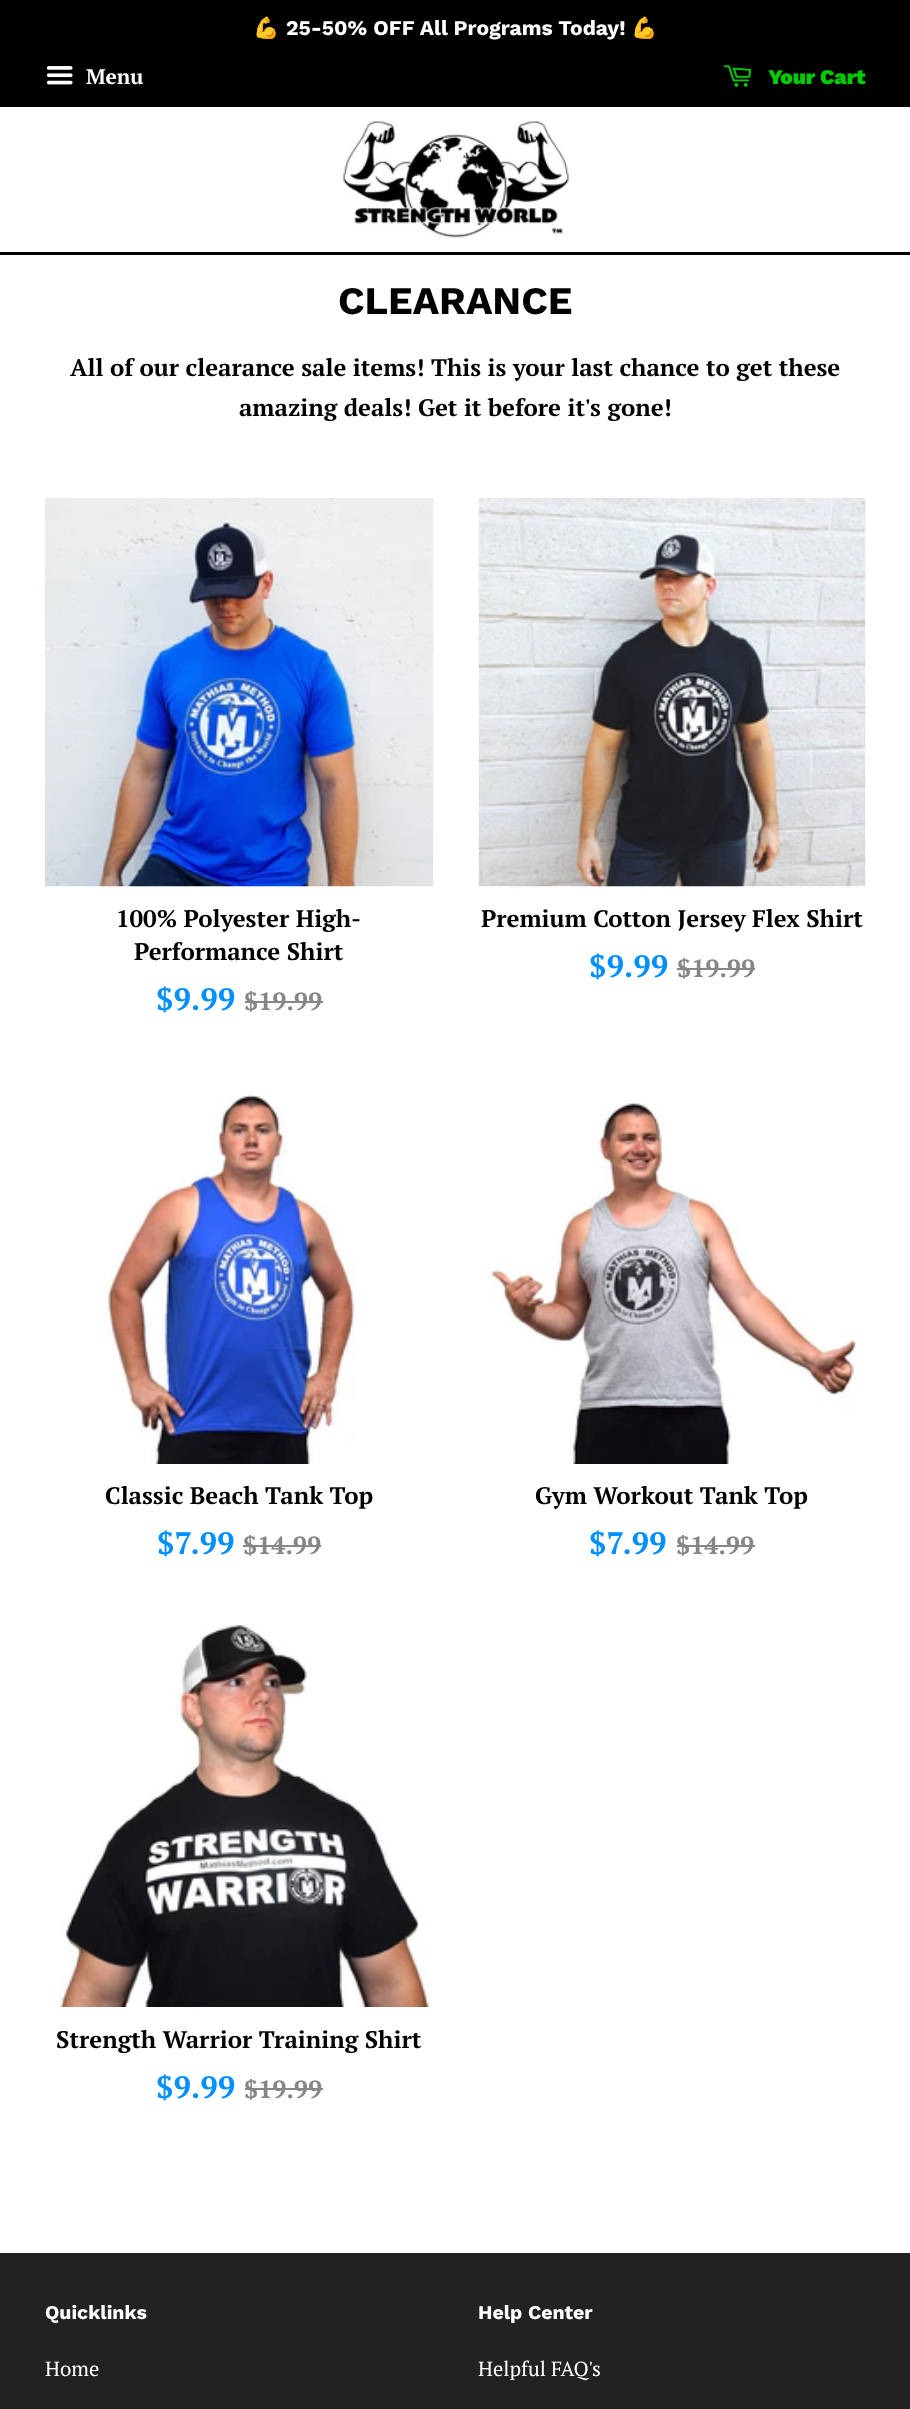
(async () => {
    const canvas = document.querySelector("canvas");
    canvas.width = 910;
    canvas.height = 2409;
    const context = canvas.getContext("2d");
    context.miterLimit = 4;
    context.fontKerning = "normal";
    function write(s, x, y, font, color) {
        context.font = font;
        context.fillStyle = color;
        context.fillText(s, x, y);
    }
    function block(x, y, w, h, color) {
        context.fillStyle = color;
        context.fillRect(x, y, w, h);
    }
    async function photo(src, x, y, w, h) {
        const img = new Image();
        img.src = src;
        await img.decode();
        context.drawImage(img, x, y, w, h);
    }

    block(0, 0, 910, 2409, "rgb(255, 255, 255)");
    block(0, 0, 910, 107, "rgb(0, 0, 0)");
    write("💪", 253, 35, "bold 21px Noto Color Emoji", "rgb(255, 255, 255)");
    write("25-50% OFF All Programs Today!", 286, 35, "bold 21px Work Sans", "rgb(255, 255, 255)");
    write("💪", 631, 35, "bold 21px Noto Color Emoji", "rgb(255, 255, 255)");
    await photo("media/1.png", 46, 66, 27, 19);
    write("Menu", 86, 84, "bold 21px PT Serif", "rgb(255, 255, 255)");
    await photo("media/2.png", 723, 65, 29, 22);
    write("Your Cart", 768, 84, "900 21px Work Sans", "rgb(0, 202, 0)");
    block(0, 252, 910, 3, "rgb(0, 0, 0)");
    await photo("media/3.png", 343, 121, 226, 117);
    write("CLEARANCE", 338, 314, "bold 39px Work Sans", "rgb(0, 0, 0)");
    write("All of our clearance sale items! This is your last chance to get these", 70, 376, "bold 24px PT Serif", "rgb(0, 0, 0)");
    write("amazing deals! Get it before it's gone!", 239, 416, "bold 24px PT Serif", "rgb(0, 0, 0)");
    await photo("media/4.png", 45, 498, 389, 389);
    write("100% Polyester High-", 116, 927, "bold 24px PT Serif", "rgb(0, 0, 0)");
    write("Performance Shirt", 134, 960, "bold 24px PT Serif", "rgb(0, 0, 0)");
    write("$9.99", 156, 1010, "bold 31px PT Serif", "rgb(0, 143, 255)");
    write("$19.99", 244, 1010, "bold 25px PT Serif", "rgb(134, 134, 134)");
    block(245, 1001, 78, 2, "rgb(134, 134, 134)");
    await photo("media/5.png", 478, 498, 388, 389);
    write("Premium Cotton Jersey Flex Shirt", 481, 927, "bold 24px PT Serif", "rgb(0, 0, 0)");
    write("$9.99", 589, 977, "bold 31px PT Serif", "rgb(0, 143, 255)");
    write("$19.99", 677, 977, "bold 25px PT Serif", "rgb(134, 134, 134)");
    block(677, 968, 78, 2, "rgb(134, 134, 134)");
    await photo("media/6.png", 102, 1092, 254, 372);
    write("Classic Beach Tank Top", 105, 1504, "bold 24px PT Serif", "rgb(0, 0, 0)");
    write("$7.99", 157, 1554, "bold 31px PT Serif", "rgb(0, 143, 255)");
    write("$14.99", 243, 1554, "bold 25px PT Serif", "rgb(134, 134, 134)");
    block(243, 1545, 78, 2, "rgb(134, 134, 134)");
    await photo("media/7.png", 488, 1103, 371, 361);
    write("Gym Workout Tank Top", 535, 1504, "bold 24px PT Serif", "rgb(0, 0, 0)");
    write("$7.99", 589, 1554, "bold 31px PT Serif", "rgb(0, 143, 255)");
    write("$14.99", 676, 1554, "bold 25px PT Serif", "rgb(134, 134, 134)");
    block(677, 1545, 78, 2, "rgb(134, 134, 134)");
    await photo("media/8.png", 59, 1624, 371, 383);
    write("Strength Warrior Training Shirt", 56, 2048, "bold 24px PT Serif", "rgb(0, 0, 0)");
    write("$9.99", 156, 2098, "bold 31px PT Serif", "rgb(0, 143, 255)");
    write("$19.99", 244, 2098, "bold 25px PT Serif", "rgb(134, 134, 134)");
    block(245, 2088, 78, 2, "rgb(134, 134, 134)");
    block(0, 2253, 910, 156, "rgb(34, 34, 34)");
    write("Quicklinks", 45, 2319, "bold 19.5px Work Sans", "rgb(255, 255, 255)");
    write("Home", 45, 2376, "20.5px PT Serif", "rgb(255, 255, 255)");
    write("Help Center", 478, 2319, "bold 19.5px Work Sans", "rgb(255, 255, 255)");
    write("Helpful FAQ's", 478, 2376, "20.5px PT Serif", "rgb(255, 255, 255)");
})();
